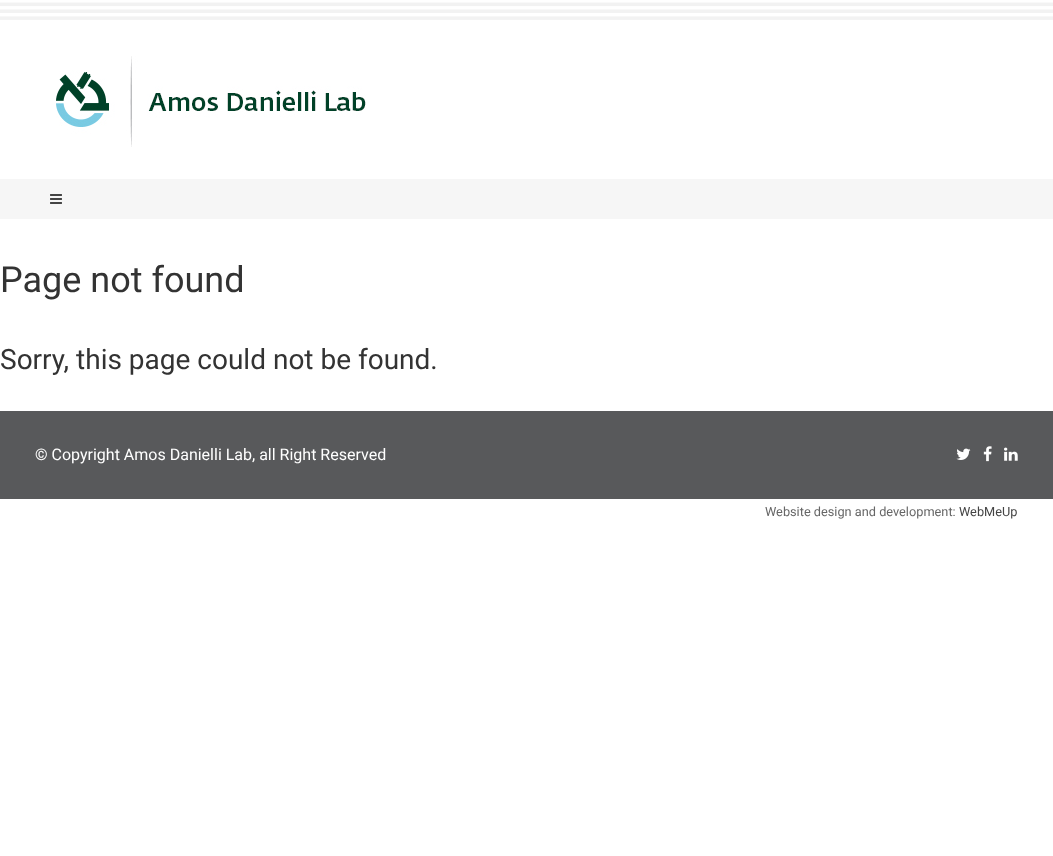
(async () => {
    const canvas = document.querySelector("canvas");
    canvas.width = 1053;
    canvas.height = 856;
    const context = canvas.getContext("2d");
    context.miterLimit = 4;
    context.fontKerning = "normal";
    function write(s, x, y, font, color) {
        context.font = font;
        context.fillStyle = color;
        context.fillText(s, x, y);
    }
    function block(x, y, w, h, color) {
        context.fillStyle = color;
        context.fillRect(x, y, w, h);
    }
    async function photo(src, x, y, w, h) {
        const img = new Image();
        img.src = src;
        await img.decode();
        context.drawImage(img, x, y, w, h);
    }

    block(0, 0, 1053, 856, "rgb(255, 255, 255)");
    await photo("media/1.png", 0, 2, 1053, 18);
    await photo("media/2.png", 56, 56, 310, 91);
    block(0, 179, 1053, 40, "rgb(246, 246, 246)");
    await photo("media/3.png", 50, 194, 12, 10);
    write("Page not found", 0, 292, "36px Roboto", "rgb(51, 51, 51)");
    write("Sorry, this page could not be found.", 0, 369, "28px Roboto", "rgb(51, 51, 51)");
    block(0, 411, 1053, 88, "rgb(88, 89, 91)");
    write("© Copyright Amos Danielli Lab, all Right Reserved", 35, 460, "16px Roboto", "rgb(255, 255, 255)");
    await photo("media/4.png", 956, 448, 15, 12);
    await photo("media/5.png", 983, 446, 9, 16);
    await photo("media/6.png", 1004, 447, 14, 14);
    write("Website design and development:", 765, 516, "12.75px Roboto", "rgb(102, 102, 102)");
    write("WebMeUp", 959, 516, "12.75px Roboto", "rgb(68, 68, 68)");
})();
